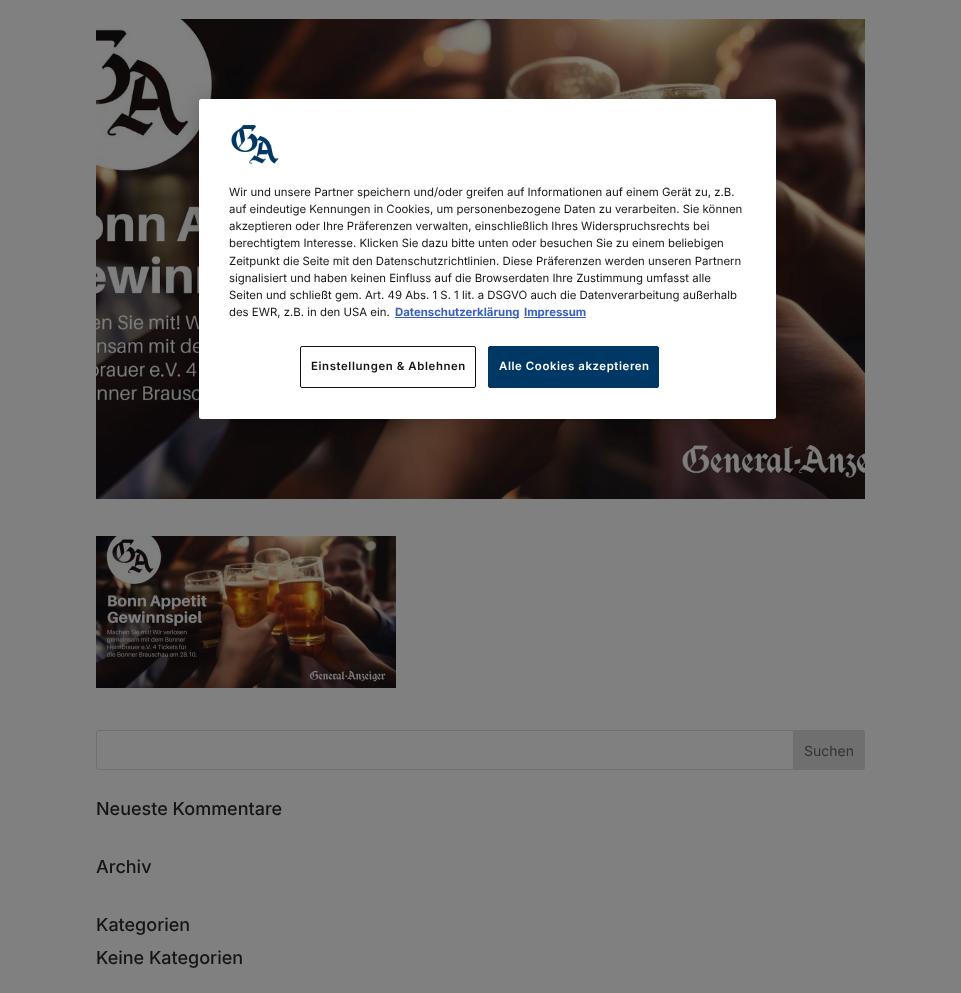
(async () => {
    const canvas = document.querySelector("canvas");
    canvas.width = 961;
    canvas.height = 993;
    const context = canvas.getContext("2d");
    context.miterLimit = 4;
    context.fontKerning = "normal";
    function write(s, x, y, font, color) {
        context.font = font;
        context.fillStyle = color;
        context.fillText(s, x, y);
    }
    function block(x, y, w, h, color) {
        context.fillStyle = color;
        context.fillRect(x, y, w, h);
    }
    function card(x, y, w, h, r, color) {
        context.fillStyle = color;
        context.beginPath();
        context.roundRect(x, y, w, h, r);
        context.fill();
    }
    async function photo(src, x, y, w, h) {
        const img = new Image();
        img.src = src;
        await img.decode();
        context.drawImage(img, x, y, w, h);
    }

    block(0, 0, 961, 993, "rgb(128, 128, 128)");
    await photo("media/2.png", 96, 19, 769, 480);
    context.fillStyle = "rgba(0, 0, 0, 0.2)";
    context.filter = "blur(9px)";
    context.beginPath();
    context.roundRect(199, 99, 577, 320, 2.5);
    context.fill();
    context.filter = "none";
    card(199, 99, 577, 320, 2.5, "rgb(255, 255, 255)");
    await photo("media/1.png", 230, 123, 50, 41);
    write("Wir und unsere Partner speichern und/oder greifen auf Informationen auf einem Gerät zu, z.B.", 229, 196, "11.4px Inter", "rgb(20, 20, 20)");
    write("auf eindeutige Kennungen in Cookies, um personenbezogene Daten zu verarbeiten. Sie können", 229, 213, "11.4px Inter", "rgb(20, 20, 20)");
    write("akzeptieren oder Ihre Präferenzen verwalten, einschließlich Ihres Widerspruchsrechts bei", 229, 230, "11.4px Inter", "rgb(20, 20, 20)");
    write("berechtigtem Interesse. Klicken Sie dazu bitte unten oder besuchen Sie zu einem beliebigen", 229, 247, "11.4px Inter", "rgb(20, 20, 20)");
    write("Zeitpunkt die Seite mit den Datenschutzrichtlinien. Diese Präferenzen werden unseren Partnern", 229, 265, "11.4px Inter", "rgb(20, 20, 20)");
    write("signalisiert und haben keinen Einfluss auf die Browserdaten Ihre Zustimmung umfasst alle", 229, 282, "11.4px Inter", "rgb(20, 20, 20)");
    write("Seiten und schließt gem. Art. 49 Abs. 1 S. 1 lit. a DSGVO auch die Datenverarbeitung außerhalb", 229, 299, "11.4px Inter", "rgb(20, 20, 20)");
    write("des EWR, z.B. in den USA ein.", 229, 316, "11.4px Inter", "rgb(20, 20, 20)");
    block(395, 317, 124, 1, "rgb(56, 96, 190)");
    write("Datenschutzerklärung", 395, 316, "bold 11.4px Inter", "rgb(56, 96, 190)");
    block(524, 317, 62, 1, "rgb(56, 96, 190)");
    write("Impressum", 524, 316, "bold 11.4px Inter", "rgb(56, 96, 190)");
    context.beginPath();
    context.roundRect(300.5, 346.5, 175, 41, 1.5);
    context.strokeStyle = "rgb(17, 17, 17)";
    context.stroke();
    context.letterSpacing = "0.6px";
    write("Einstellungen & Ablehnen", 311, 370, "600 11.4px Inter", "rgb(20, 20, 20)");
    context.fillStyle = "rgb(0, 56, 101)";
    context.beginPath();
    context.roundRect(488.5, 346.5, 170, 41, 1.5);
    context.fill();
    context.strokeStyle = "rgb(0, 56, 101)";
    context.stroke();
    write("Alle Cookies akzeptieren", 499, 370, "600 11.4px Inter", "rgb(255, 255, 255)");
    await photo("media/3.png", 96, 536, 300, 152);
    context.beginPath();
    context.roundRect(96.5, 730.5, 768, 39, 2.5);
    context.strokeStyle = "rgb(111, 111, 111)";
    context.stroke();
    context.fillStyle = "rgb(111, 111, 111)";
    context.beginPath();
    context.roundRect(793, 730, 72, 40, [0, 3, 3, 0]);
    context.fill();
    context.letterSpacing = "0px";
    write("Suchen", 804, 756, "14px Inter", "rgb(51, 51, 51)");
    write("Neueste Kommentare", 96, 815, "500 18px Inter", "rgb(20, 20, 20)");
    write("Archiv", 96, 873, "500 18px Inter", "rgb(20, 20, 20)");
    write("Kategorien", 96, 931, "500 18px Inter", "rgb(20, 20, 20)");
    write("Keine Kategorien", 96, 964, "500 18px Inter", "rgb(20, 20, 20)");
})();
